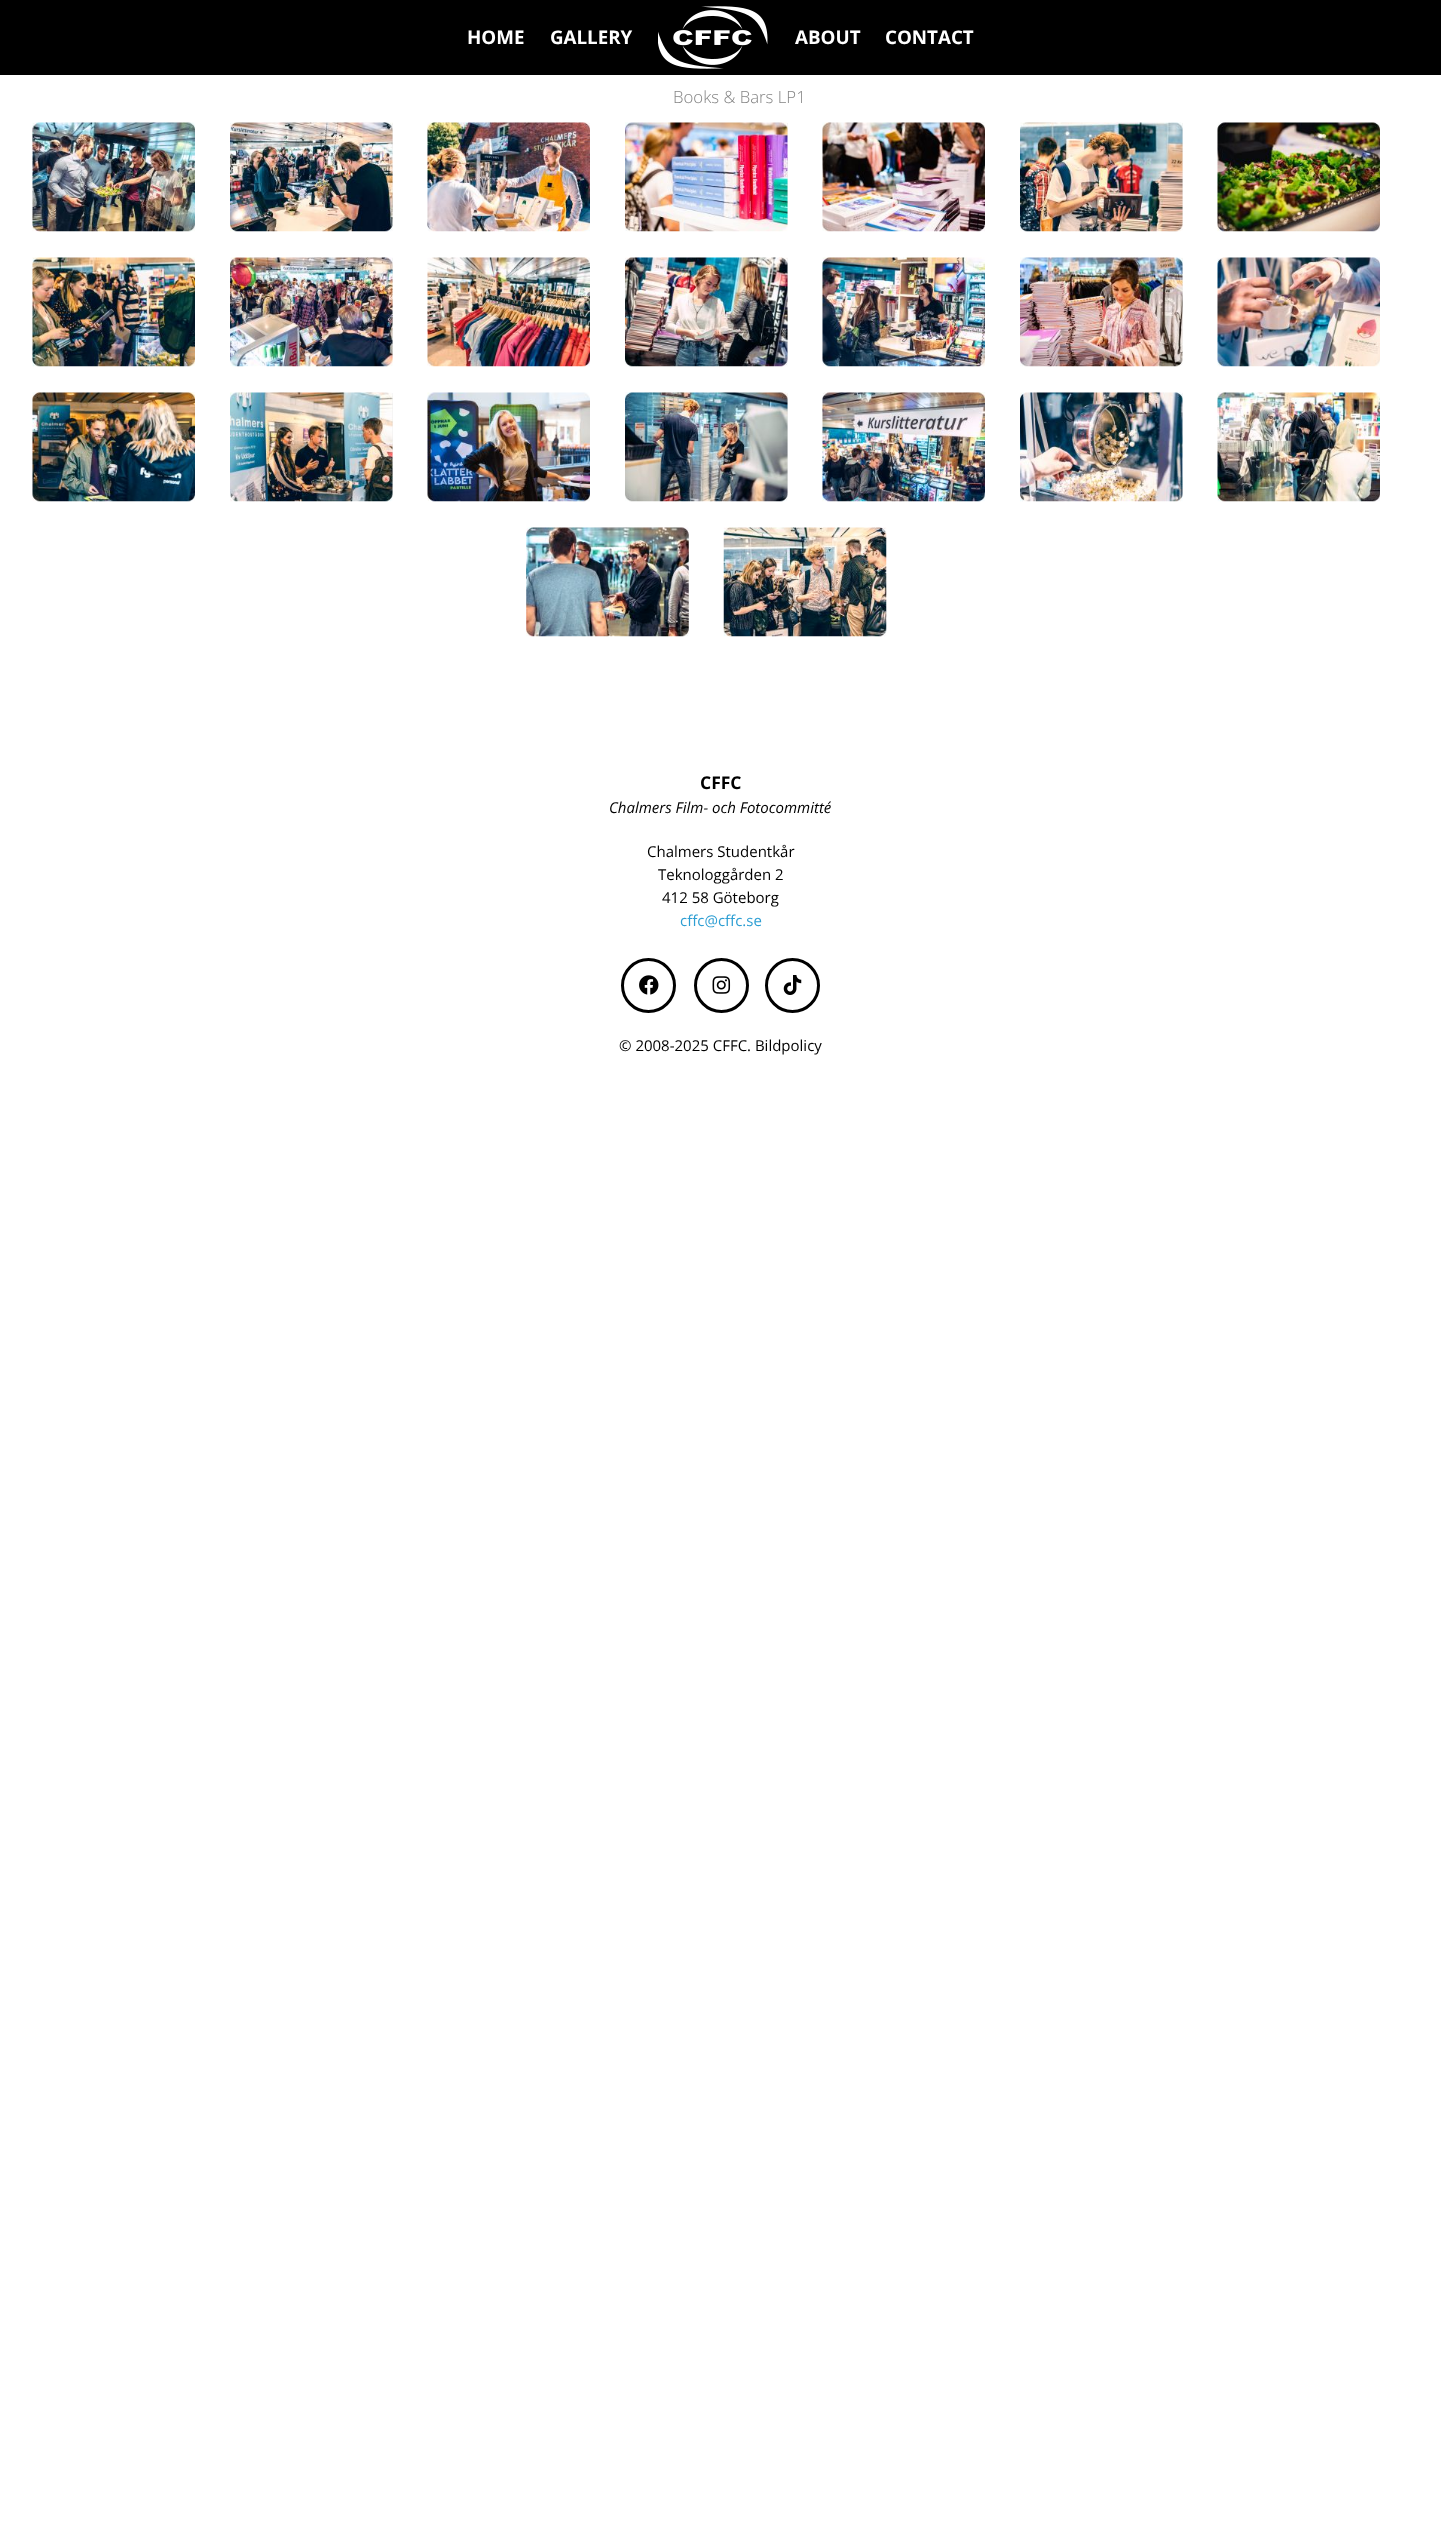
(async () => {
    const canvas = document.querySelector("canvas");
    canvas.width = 1441;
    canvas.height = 2546;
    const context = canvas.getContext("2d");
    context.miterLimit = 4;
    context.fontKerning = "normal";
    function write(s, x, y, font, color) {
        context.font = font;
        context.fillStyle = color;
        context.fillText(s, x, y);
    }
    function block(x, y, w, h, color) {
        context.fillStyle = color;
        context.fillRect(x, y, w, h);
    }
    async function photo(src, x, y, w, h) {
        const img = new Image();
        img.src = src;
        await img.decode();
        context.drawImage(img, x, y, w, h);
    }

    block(0, 0, 1441, 2546, "rgb(255, 255, 255)");
    block(0, 0, 1441, 75, "rgb(0, 0, 0)");
    write("HOME", 467, 44, "bold 18.75px Open Sans", "rgb(255, 255, 255)");
    write("GALLERY", 550, 44, "bold 18.75px Open Sans", "rgb(255, 255, 255)");
    await photo("media/1.png", 658, 6, 110, 63);
    write("ABOUT", 795, 44, "bold 18.75px Open Sans", "rgb(255, 255, 255)");
    write("CONTACT", 885, 44, "bold 18.75px Open Sans", "rgb(255, 255, 255)");
    write("Books & Bars LP1", 673, 103, "300 16.75px Open Sans", "rgb(133, 133, 133)");
    await photo("media/2.png", 32, 122, 163, 110);
    block(392, 123, 1, 100, "rgb(238, 238, 238)");
    await photo("media/3.png", 230, 122, 163, 110);
    await photo("media/4.png", 427, 122, 163, 110);
    block(787, 123, 1, 100, "rgb(238, 238, 238)");
    await photo("media/5.png", 625, 122, 163, 110);
    await photo("media/6.png", 822, 122, 163, 110);
    block(1182, 123, 1, 100, "rgb(238, 238, 238)");
    await photo("media/7.png", 1020, 122, 163, 110);
    await photo("media/8.png", 1217, 122, 163, 110);
    await photo("media/9.png", 32, 257, 163, 110);
    block(392, 258, 1, 100, "rgb(238, 238, 238)");
    await photo("media/10.png", 230, 257, 163, 110);
    await photo("media/11.png", 427, 257, 163, 110);
    block(787, 258, 1, 100, "rgb(238, 238, 238)");
    await photo("media/12.png", 625, 257, 163, 110);
    await photo("media/13.png", 822, 257, 163, 110);
    block(1182, 258, 1, 100, "rgb(238, 238, 238)");
    await photo("media/14.png", 1020, 257, 163, 110);
    await photo("media/15.png", 1217, 257, 163, 110);
    await photo("media/16.png", 32, 392, 163, 110);
    block(392, 393, 1, 100, "rgb(238, 238, 238)");
    await photo("media/17.png", 230, 392, 163, 110);
    await photo("media/18.png", 427, 392, 163, 110);
    block(787, 393, 1, 100, "rgb(238, 238, 238)");
    await photo("media/19.png", 625, 392, 163, 110);
    await photo("media/20.png", 822, 392, 163, 110);
    block(1182, 393, 1, 100, "rgb(238, 238, 238)");
    await photo("media/21.png", 1020, 392, 163, 110);
    await photo("media/22.png", 1217, 392, 163, 110);
    await photo("media/23.png", 526, 527, 163, 110);
    await photo("media/24.png", 723, 527, 164, 110);
    write("CFFC", 700, 789, "bold 17.5px Open Sans", "rgb(0, 0, 0)");
    write("Chalmers Film- och Fotocommitté", 609, 813, "italic 15px Open Sans", "rgb(0, 0, 0)");
    write("Chalmers Studentkår", 647, 857, "15px Open Sans", "rgb(0, 0, 0)");
    write("Teknologgården 2", 658, 880, "15px Open Sans", "rgb(0, 0, 0)");
    write("412 58 Göteborg", 662, 903, "15px Open Sans", "rgb(0, 0, 0)");
    write("cffc@cffc.se", 680, 926, "15px Open Sans", "rgb(45, 158, 211)");
    context.beginPath();
    context.arc(648.5, 985.5, 26, 0, Math.PI * 2);
    context.strokeStyle = "rgb(0, 0, 0)";
    context.lineWidth = 3;
    context.stroke();
    await photo("media/25.png", 639, 975, 20, 20);
    context.beginPath();
    context.arc(721.5, 985.5, 26, 0, Math.PI * 2);
    context.stroke();
    await photo("media/26.png", 712, 976, 19, 18);
    context.beginPath();
    context.arc(792.5, 985.5, 26, 0, Math.PI * 2);
    context.stroke();
    await photo("media/27.png", 783, 975, 19, 20);
    write("© 2008-2025 CFFC. Bildpolicy", 619, 1051, "15px Open Sans", "rgb(0, 0, 0)");
})();
